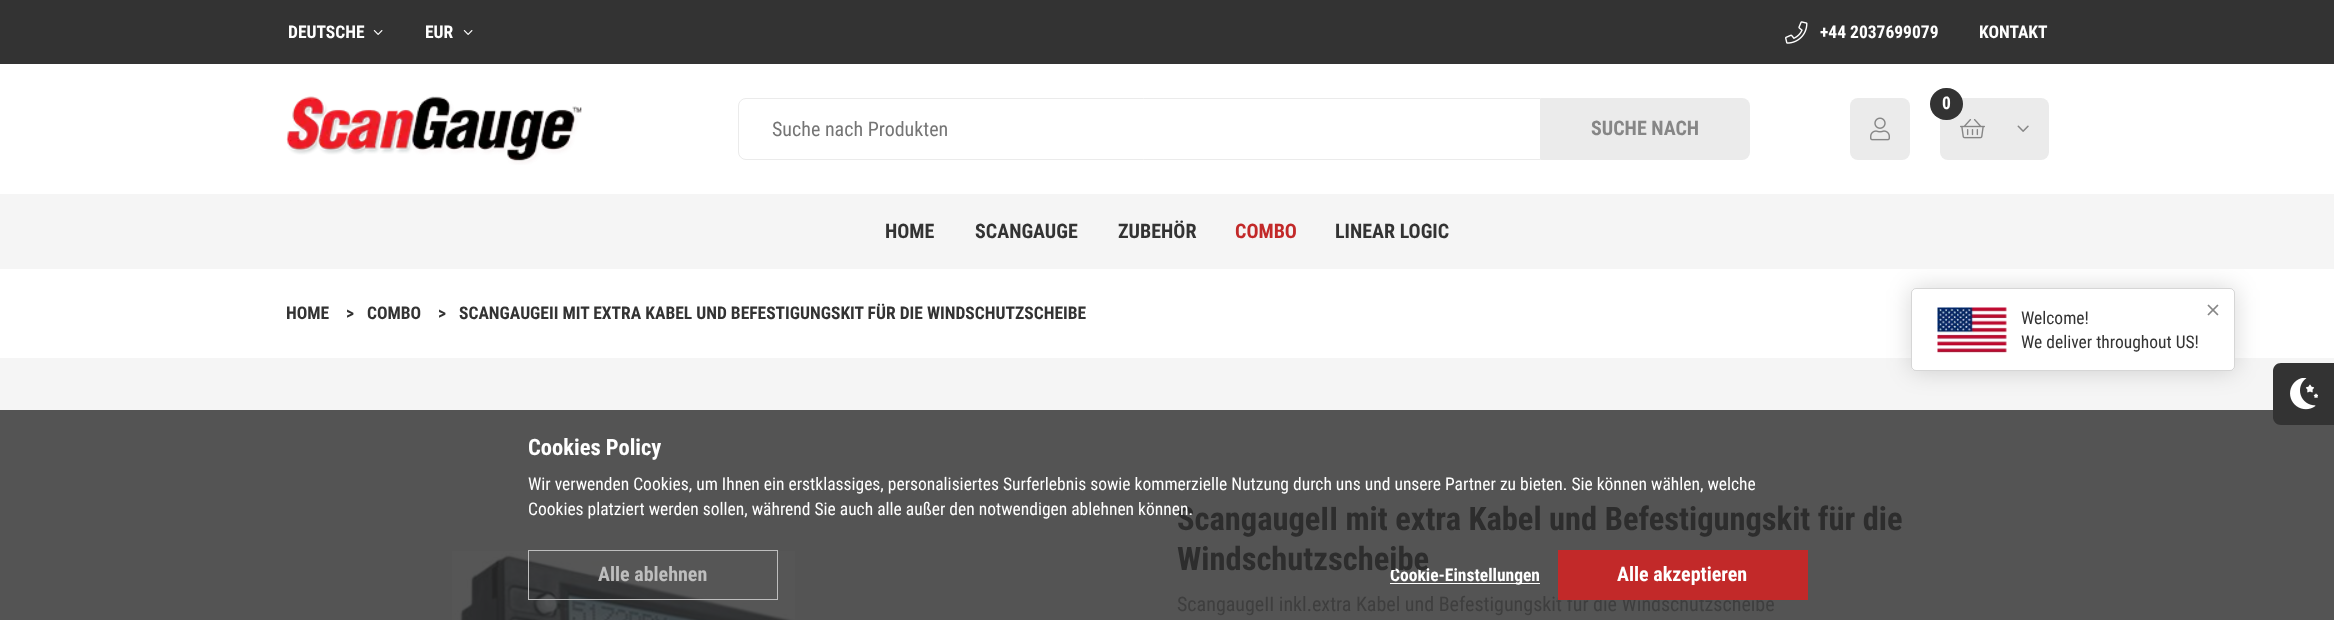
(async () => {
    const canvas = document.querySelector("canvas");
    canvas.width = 2334;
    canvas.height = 620;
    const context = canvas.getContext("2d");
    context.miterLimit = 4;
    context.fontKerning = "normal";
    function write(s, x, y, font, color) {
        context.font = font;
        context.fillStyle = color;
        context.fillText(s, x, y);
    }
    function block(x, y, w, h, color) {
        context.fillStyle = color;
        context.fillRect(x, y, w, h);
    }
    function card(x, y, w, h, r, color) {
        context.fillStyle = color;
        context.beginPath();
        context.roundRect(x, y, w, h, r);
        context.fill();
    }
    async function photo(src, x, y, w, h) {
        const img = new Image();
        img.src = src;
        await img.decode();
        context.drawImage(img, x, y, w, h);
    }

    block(0, 0, 2334, 620, "rgb(255, 255, 255)");
    block(0, 0, 2334, 64, "rgb(51, 51, 51)");
    write("DEUTSCHE", 288, 38, "bold 17.5px Roboto Condensed", "rgb(255, 255, 255)");
    await photo("media/1.png", 373, 30, 10, 5);
    write("EUR", 425, 38, "bold 17.5px Roboto Condensed", "rgb(255, 255, 255)");
    await photo("media/1.png", 463, 30, 10, 5);
    await photo("media/2.png", 1785, 21, 23, 23);
    write("+44 2037699079", 1820, 38, "bold 17.5px Roboto Condensed", "rgb(255, 255, 255)");
    write("KONTAKT", 1979, 38, "bold 17.5px Roboto Condensed", "rgb(255, 255, 255)");
    await photo("media/3.png", 286, 96, 296, 69);
    card(1850, 98, 60, 62, 8, "rgb(235, 235, 235)");
    await photo("media/4.png", 1870, 117, 20, 24);
    card(1940, 98, 109, 62, 8, "rgb(235, 235, 235)");
    await photo("media/5.png", 1960, 119, 25, 20);
    card(1930, 88, 33, 32, 16, "rgb(51, 51, 51)");
    write("0", 1942, 109, "bold 17.5px Roboto Condensed", "rgb(255, 255, 255)");
    await photo("media/6.png", 2017, 125, 12, 7);
    context.beginPath();
    context.roundRect(738.5, 98.5, 802, 61, [7.5, 0, 0, 7.5]);
    context.strokeStyle = "rgb(235, 235, 235)";
    context.stroke();
    write("Suche nach Produkten", 772, 136, "20px Roboto Condensed", "rgb(117, 117, 117)");
    context.fillStyle = "rgb(235, 235, 235)";
    context.beginPath();
    context.roundRect(1541, 98, 209, 62, [0, 8, 8, 0]);
    context.fill();
    write("SUCHE NACH", 1591, 135, "bold 20px Roboto Condensed", "rgb(134, 134, 134)");
    block(0, 358, 2334, 52, "rgb(245, 245, 245)");
    block(0, 410, 2334, 210, "rgb(84, 84, 84)");
    context.fillStyle = "rgb(51, 51, 51)";
    context.beginPath();
    context.moveTo(2281, 363);
    context.lineTo(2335, 363);
    context.lineTo(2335, 425);
    context.lineTo(2281, 425);
    context.bezierCurveTo(2276.5, 425, 2273, 421.5, 2273, 417);
    context.lineTo(2273, 371);
    context.bezierCurveTo(2273, 366.5, 2276.5, 363, 2281, 363);
    context.closePath();
    context.fill();
    context.fillStyle = "rgba(0, 0, 0, 0.16)";
    context.filter = "blur(12.5px)";
    context.beginPath();
    context.roundRect(1911, 288, 324, 83, 5);
    context.fill();
    context.filter = "none";
    block(0, 194, 2334, 75, "rgb(245, 245, 245)");
    write("HOME", 885, 238, "bold 20px Roboto Condensed", "rgb(51, 51, 51)");
    write("SCANGAUGE", 975, 238, "bold 20px Roboto Condensed", "rgb(51, 51, 51)");
    write("ZUBEHÖR", 1118, 238, "bold 20px Roboto Condensed", "rgb(51, 51, 51)");
    write("COMBO", 1235, 238, "bold 20px Roboto Condensed", "rgb(194, 41, 41)");
    write("LINEAR LOGIC", 1335, 238, "bold 20px Roboto Condensed", "rgb(51, 51, 51)");
    card(1911, 288, 324, 83, 5, "rgb(255, 255, 255)");
    context.beginPath();
    context.roundRect(1911.5, 288.5, 323, 82, 4.5);
    context.strokeStyle = "rgba(0, 0, 0, 0.16)";
    context.stroke();
    await photo("media/7.png", 1937, 307, 70, 46);
    write("Welcome!", 2021, 324, "17.5px Roboto Condensed", "rgb(51, 51, 51)");
    write("We deliver throughout US!", 2021, 348, "17.5px Roboto Condensed", "rgb(51, 51, 51)");
    await photo("media/8.png", 2207, 304, 12, 12);
    write("HOME", 286, 319, "bold 17.5px Roboto Condensed", "rgb(51, 51, 51)");
    write(">", 346, 319, "bold 17.5px Roboto Condensed", "rgb(51, 51, 51)");
    write("COMBO", 367, 319, "bold 17.5px Roboto Condensed", "rgb(51, 51, 51)");
    write(">", 438, 319, "bold 17.5px Roboto Condensed", "rgb(51, 51, 51)");
    write("SCANGAUGEII MIT EXTRA KABEL UND BEFESTIGUNGSKIT FÜR DIE WINDSCHUTZSCHEIBE", 459, 319, "bold 17.5px Roboto Condensed", "rgb(51, 51, 51)");
    await photo("media/9.png", 2290, 378, 28, 32);
    write("Cookies Policy", 528, 455, "bold 22.5px Roboto Condensed", "rgb(255, 255, 255)");
    write("Wir verwenden Cookies, um Ihnen ein erstklassiges, personalisiertes Surferlebnis sowie kommerzielle Nutzung durch uns und unsere Partner zu bieten. Sie können wählen, welche", 528, 490, "17.5px Roboto Condensed", "rgb(255, 255, 255)");
    write("ScangaugeII mit extra Kabel und Befestigungskit für die", 1177, 530, "bold 32.5px Roboto Condensed", "rgb(45, 45, 45)");
    write("Cookies platziert werden sollen, während Sie auch alle außer den notwendigen ablehnen können.", 528, 515, "17.5px Roboto Condensed", "rgb(255, 255, 255)");
    await photo("media/10.png", 452, 551, 343, 69);
    context.strokeStyle = "rgb(190, 190, 190)";
    context.strokeRect(528.5, 550.5, 249, 49);
    write("Alle ablehnen", 598, 581, "bold 20px Roboto Condensed", "rgb(190, 190, 190)");
    block(1390, 583, 150, 1, "rgb(255, 255, 255)");
    write("Cookie-Einstellungen", 1390, 581, "bold 17.5px Roboto Condensed", "rgb(255, 255, 255)");
    write("ScangaugeII inkl.extra Kabel und Befestigungskit für die Windschutzscheibe", 1177, 611, "20px Roboto Condensed", "rgb(62, 62, 62)");
    block(1558, 550, 250, 50, "rgb(194, 41, 41)");
    write("Alle akzeptieren", 1617, 581, "bold 20px Roboto Condensed", "rgb(255, 255, 255)");
    write("Windschutzscheibe", 1177, 570, "bold 32.5px Roboto Condensed", "rgb(45, 45, 45)");
})();
